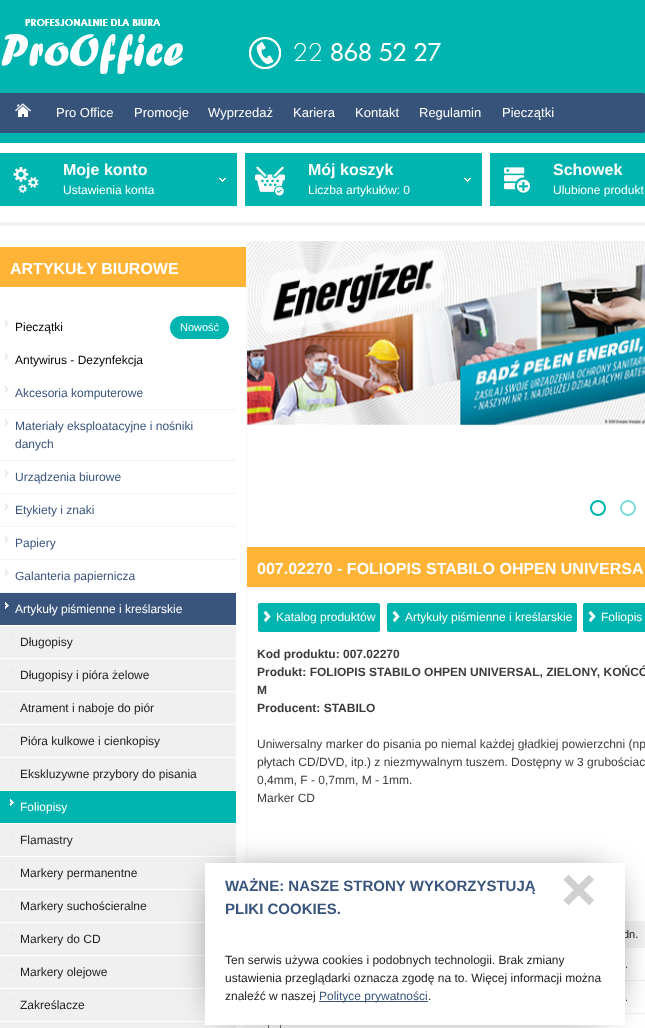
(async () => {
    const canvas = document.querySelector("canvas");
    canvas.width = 645;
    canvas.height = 1028;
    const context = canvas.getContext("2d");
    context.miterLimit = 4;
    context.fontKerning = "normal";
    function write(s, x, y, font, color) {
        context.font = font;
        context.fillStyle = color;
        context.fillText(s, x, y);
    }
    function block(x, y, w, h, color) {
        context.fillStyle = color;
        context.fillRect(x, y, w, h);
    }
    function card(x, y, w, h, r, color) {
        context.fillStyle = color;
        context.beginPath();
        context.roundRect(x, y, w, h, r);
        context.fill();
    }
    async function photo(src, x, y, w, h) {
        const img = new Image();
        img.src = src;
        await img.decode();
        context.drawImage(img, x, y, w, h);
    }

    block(0, 0, 645, 1028, "rgb(255, 255, 255)");
    block(0, 222, 645, 4, "rgb(242, 242, 242)");
    block(0, 0, 645, 143, "rgb(0, 181, 176)");
    await photo("media/1.png", 1, 19, 441, 55);
    card(0, 93, 645, 40, 2, "rgb(56, 83, 122)");
    block(0, 93, 2, 40, "rgb(56, 83, 122)");
    await photo("media/2.png", 15, 103, 16, 14);
    write("Pro Office", 56, 117, "13px Liberation Sans", "rgb(255, 255, 255)");
    write("Promocje", 134, 117, "13px Liberation Sans", "rgb(255, 255, 255)");
    write("Wyprzedaż", 208, 117, "13px Liberation Sans", "rgb(255, 255, 255)");
    write("Kariera", 293, 117, "13px Liberation Sans", "rgb(255, 255, 255)");
    write("Kontakt", 355, 117, "13px Liberation Sans", "rgb(255, 255, 255)");
    write("Regulamin", 419, 117, "13px Liberation Sans", "rgb(255, 255, 255)");
    write("Pieczątki", 502, 117, "13px Liberation Sans", "rgb(255, 255, 255)");
    block(0, 153, 237, 53, "rgb(0, 181, 176)");
    await photo("media/3.png", 219, 178, 7, 4);
    await photo("media/4.png", 13, 167, 26, 26);
    write("Moje konto", 63, 175, "bold 16px Liberation Sans", "rgb(255, 255, 255)");
    write("Ustawienia konta", 63, 194, "12px Liberation Sans", "rgb(255, 255, 255)");
    block(245, 153, 237, 53, "rgb(0, 181, 176)");
    await photo("media/3.png", 464, 178, 7, 4);
    await photo("media/5.png", 255, 166, 30, 30);
    write("Mój koszyk", 308, 175, "bold 16px Liberation Sans", "rgb(255, 255, 255)");
    write("Liczba artykułów: 0", 308, 194, "12px Liberation Sans", "rgb(255, 255, 255)");
    block(490, 153, 155, 53, "rgb(0, 181, 176)");
    await photo("media/6.png", 504, 167, 26, 26);
    write("Schowek", 553, 175, "bold 16px Liberation Sans", "rgb(255, 255, 255)");
    write("Ulubione produkt", 553, 194, "12px Liberation Sans", "rgb(255, 255, 255)");
    block(246, 241, 1, 787, "rgb(245, 245, 245)");
    block(0, 247, 246, 40, "rgb(255, 180, 55)");
    write("ARTYKUŁY BIUROWE", 10, 274, "bold 16px Liberation Sans", "rgb(255, 255, 255)");
    block(0, 409, 236, 184, "rgb(244, 244, 244)");
    await photo("media/7.png", 5, 320, 4, 7);
    write("Pieczątki", 15, 331, "12px Liberation Sans", "rgb(0, 0, 0)");
    card(170, 316, 59, 23, 11.5, "rgb(0, 181, 176)");
    write("Nowość", 180, 331, "11px Liberation Sans", "rgb(255, 255, 255)");
    await photo("media/7.png", 5, 353, 4, 7);
    write("Antywirus - Dezynfekcja", 15, 364, "12px Liberation Sans", "rgb(0, 0, 0)");
    await photo("media/7.png", 5, 386, 4, 7);
    write("Akcesoria komputerowe", 15, 397, "12px Liberation Sans", "rgb(57, 85, 125)");
    block(0, 410, 236, 50, "rgb(255, 255, 255)");
    await photo("media/7.png", 5, 419, 4, 7);
    write("Materiały eksploatacyjne i nośniki", 15, 430, "12px Liberation Sans", "rgb(57, 85, 125)");
    write("danych", 15, 448, "12px Liberation Sans", "rgb(57, 85, 125)");
    block(0, 461, 236, 32, "rgb(255, 255, 255)");
    await photo("media/7.png", 5, 470, 4, 7);
    write("Urządzenia biurowe", 15, 481, "12px Liberation Sans", "rgb(57, 85, 125)");
    block(0, 494, 236, 32, "rgb(255, 255, 255)");
    await photo("media/7.png", 5, 503, 4, 7);
    write("Etykiety i znaki", 15, 514, "12px Liberation Sans", "rgb(57, 85, 125)");
    block(0, 527, 236, 32, "rgb(255, 255, 255)");
    await photo("media/7.png", 5, 536, 4, 7);
    write("Papiery", 15, 547, "12px Liberation Sans", "rgb(57, 85, 125)");
    block(0, 560, 236, 32, "rgb(255, 255, 255)");
    await photo("media/7.png", 5, 569, 4, 7);
    write("Galanteria papiernicza", 15, 580, "12px Liberation Sans", "rgb(57, 85, 125)");
    block(0, 593, 236, 32, "rgb(57, 85, 125)");
    await photo("media/8.png", 5, 602, 4, 7);
    write("Artykuły piśmienne i kreślarskie", 15, 613, "12px Liberation Sans", "rgb(255, 255, 255)");
    block(0, 626, 236, 32, "rgb(240, 240, 240)");
    await photo("media/9.png", 10, 634, 4, 7);
    write("Długopisy", 20, 646, "12px Liberation Sans", "rgb(34, 34, 34)");
    block(0, 659, 236, 32, "rgb(240, 240, 240)");
    await photo("media/9.png", 10, 667, 4, 7);
    write("Długopisy i pióra żelowe", 20, 679, "12px Liberation Sans", "rgb(34, 34, 34)");
    block(0, 692, 236, 32, "rgb(240, 240, 240)");
    await photo("media/9.png", 10, 700, 4, 7);
    write("Atrament i naboje do piór", 20, 712, "12px Liberation Sans", "rgb(34, 34, 34)");
    block(0, 725, 236, 32, "rgb(240, 240, 240)");
    await photo("media/9.png", 10, 733, 4, 7);
    write("Pióra kulkowe i cienkopisy", 20, 745, "12px Liberation Sans", "rgb(34, 34, 34)");
    block(0, 758, 236, 32, "rgb(240, 240, 240)");
    await photo("media/9.png", 10, 766, 4, 7);
    write("Ekskluzywne przybory do pisania", 20, 778, "12px Liberation Sans", "rgb(34, 34, 34)");
    block(0, 791, 236, 32, "rgb(0, 181, 176)");
    await photo("media/10.png", 10, 799, 4, 7);
    write("Foliopisy", 20, 811, "12px Liberation Sans", "rgb(255, 255, 255)");
    block(0, 824, 236, 32, "rgb(240, 240, 240)");
    await photo("media/9.png", 10, 832, 4, 7);
    write("Flamastry", 20, 844, "12px Liberation Sans", "rgb(34, 34, 34)");
    block(0, 857, 236, 32, "rgb(240, 240, 240)");
    await photo("media/9.png", 10, 865, 4, 7);
    write("Markery permanentne", 20, 877, "12px Liberation Sans", "rgb(34, 34, 34)");
    block(0, 890, 205, 32, "rgb(240, 240, 240)");
    await photo("media/9.png", 10, 898, 4, 7);
    write("Markery suchościeralne", 20, 910, "12px Liberation Sans", "rgb(34, 34, 34)");
    block(0, 923, 205, 32, "rgb(240, 240, 240)");
    await photo("media/9.png", 10, 931, 4, 7);
    write("Markery do CD", 20, 943, "12px Liberation Sans", "rgb(34, 34, 34)");
    block(0, 956, 205, 32, "rgb(240, 240, 240)");
    await photo("media/9.png", 10, 964, 4, 7);
    write("Markery olejowe", 20, 976, "12px Liberation Sans", "rgb(34, 34, 34)");
    block(0, 989, 205, 32, "rgb(240, 240, 240)");
    await photo("media/9.png", 10, 997, 4, 7);
    write("Zakreślacze", 20, 1009, "12px Liberation Sans", "rgb(34, 34, 34)");
    block(0, 1022, 236, 6, "rgb(240, 240, 240)");
    await photo("media/11.png", 247, 241, 398, 184);
    context.beginPath();
    context.arc(598, 508, 7, 0, Math.PI * 2);
    context.strokeStyle = "rgb(0, 181, 176)";
    context.lineWidth = 2;
    context.stroke();
    context.beginPath();
    context.arc(628, 508, 7, 0, Math.PI * 2);
    context.strokeStyle = "rgb(128, 218, 216)";
    context.stroke();
    block(247, 547, 398, 40, "rgb(255, 180, 55)");
    block(247, 587, 398, 1, "rgb(245, 245, 245)");
    write("007.02270 - FOLIOPIS STABILO OHPEN UNIVERSA", 257, 574, "bold 16px Liberation Sans", "rgb(255, 255, 255)");
    card(258, 603, 122, 29, 2, "rgb(0, 181, 176)");
    await photo("media/12.png", 263, 610, 8, 12);
    write("Katalog produktów", 276, 621, "12px Liberation Sans", "rgb(255, 255, 255)");
    card(387, 603, 190, 29, 2, "rgb(0, 181, 176)");
    await photo("media/12.png", 392, 610, 8, 12);
    write("Artykuły piśmienne i kreślarskie", 405, 621, "12px Liberation Sans", "rgb(255, 255, 255)");
    card(583, 603, 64, 29, 2, "rgb(0, 181, 176)");
    await photo("media/12.png", 588, 610, 8, 12);
    write("Foliopis", 601, 621, "12px Liberation Sans", "rgb(255, 255, 255)");
    write("Kod produktu: 007.02270", 257, 658, "bold 12px Liberation Sans", "rgb(60, 60, 60)");
    write("Produkt: FOLIOPIS STABILO OHPEN UNIVERSAL, ZIELONY, KOŃCÓ", 257, 676, "bold 12px Liberation Sans", "rgb(60, 60, 60)");
    write("M", 257, 694, "bold 12px Liberation Sans", "rgb(60, 60, 60)");
    write("Producent: STABILO", 257, 712, "bold 12px Liberation Sans", "rgb(60, 60, 60)");
    write("Uniwersalny marker do pisania po niemal każdej gładkiej powierzchni (np", 257, 748, "12px Liberation Sans", "rgb(60, 60, 60)");
    write("płytach CD/DVD, itp.) z niezmywalnym tuszem. Dostępny w 3 grubościac", 257, 766, "12px Liberation Sans", "rgb(60, 60, 60)");
    write("0,4mm, F - 0,7mm, M - 1mm.", 257, 784, "12px Liberation Sans", "rgb(60, 60, 60)");
    write("Marker CD", 257, 802, "12px Liberation Sans", "rgb(60, 60, 60)");
    block(625, 921, 20, 27, "rgb(242, 242, 242)");
    write("dn.", 623, 938, "11px Liberation Sans", "rgb(34, 34, 34)");
    block(625, 980, 20, 1, "rgb(240, 240, 240)");
    write(".", 625, 968, "11px Liberation Sans", "rgb(60, 60, 60)");
    block(625, 1013, 20, 1, "rgb(240, 240, 240)");
    write(".", 625, 1001, "11px Liberation Sans", "rgb(60, 60, 60)");
    context.strokeStyle = "rgb(118, 118, 118)";
    context.lineWidth = 1;
    context.strokeRect(268.5, 1023.5, 12, 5);
    context.fillStyle = "rgb(0, 0, 0)";
    context.filter = "blur(20px)";
    context.beginPath();
    context.rect(225, 883, 380, 122);
    context.fill();
    context.filter = "none";
    block(205, 863, 420, 162, "rgb(255, 255, 255)");
    write("WAŻNE: NASZE STRONY WYKORZYSTUJĄ", 225, 891, "bold 15px Liberation Sans", "rgb(57, 85, 125)");
    write("PLIKI COOKIES.", 225, 914, "bold 15px Liberation Sans", "rgb(57, 85, 125)");
    await photo("media/13.png", 563, 874, 31, 32);
    write("Ten serwis używa cookies i podobnych technologii. Brak zmiany", 225, 964, "12px Liberation Sans", "rgb(34, 34, 34)");
    write("ustawienia przeglądarki oznacza zgodę na to. Więcej informacji można", 225, 982, "12px Liberation Sans", "rgb(34, 34, 34)");
    write("znaleźć w naszej", 225, 1000, "12px Liberation Sans", "rgb(34, 34, 34)");
    block(319, 1001, 109, 1, "rgb(57, 85, 125)");
    write("Polityce prywatności", 319, 1000, "12px Liberation Sans", "rgb(57, 85, 125)");
    write(".", 428, 1000, "12px Liberation Sans", "rgb(34, 34, 34)");
})();
